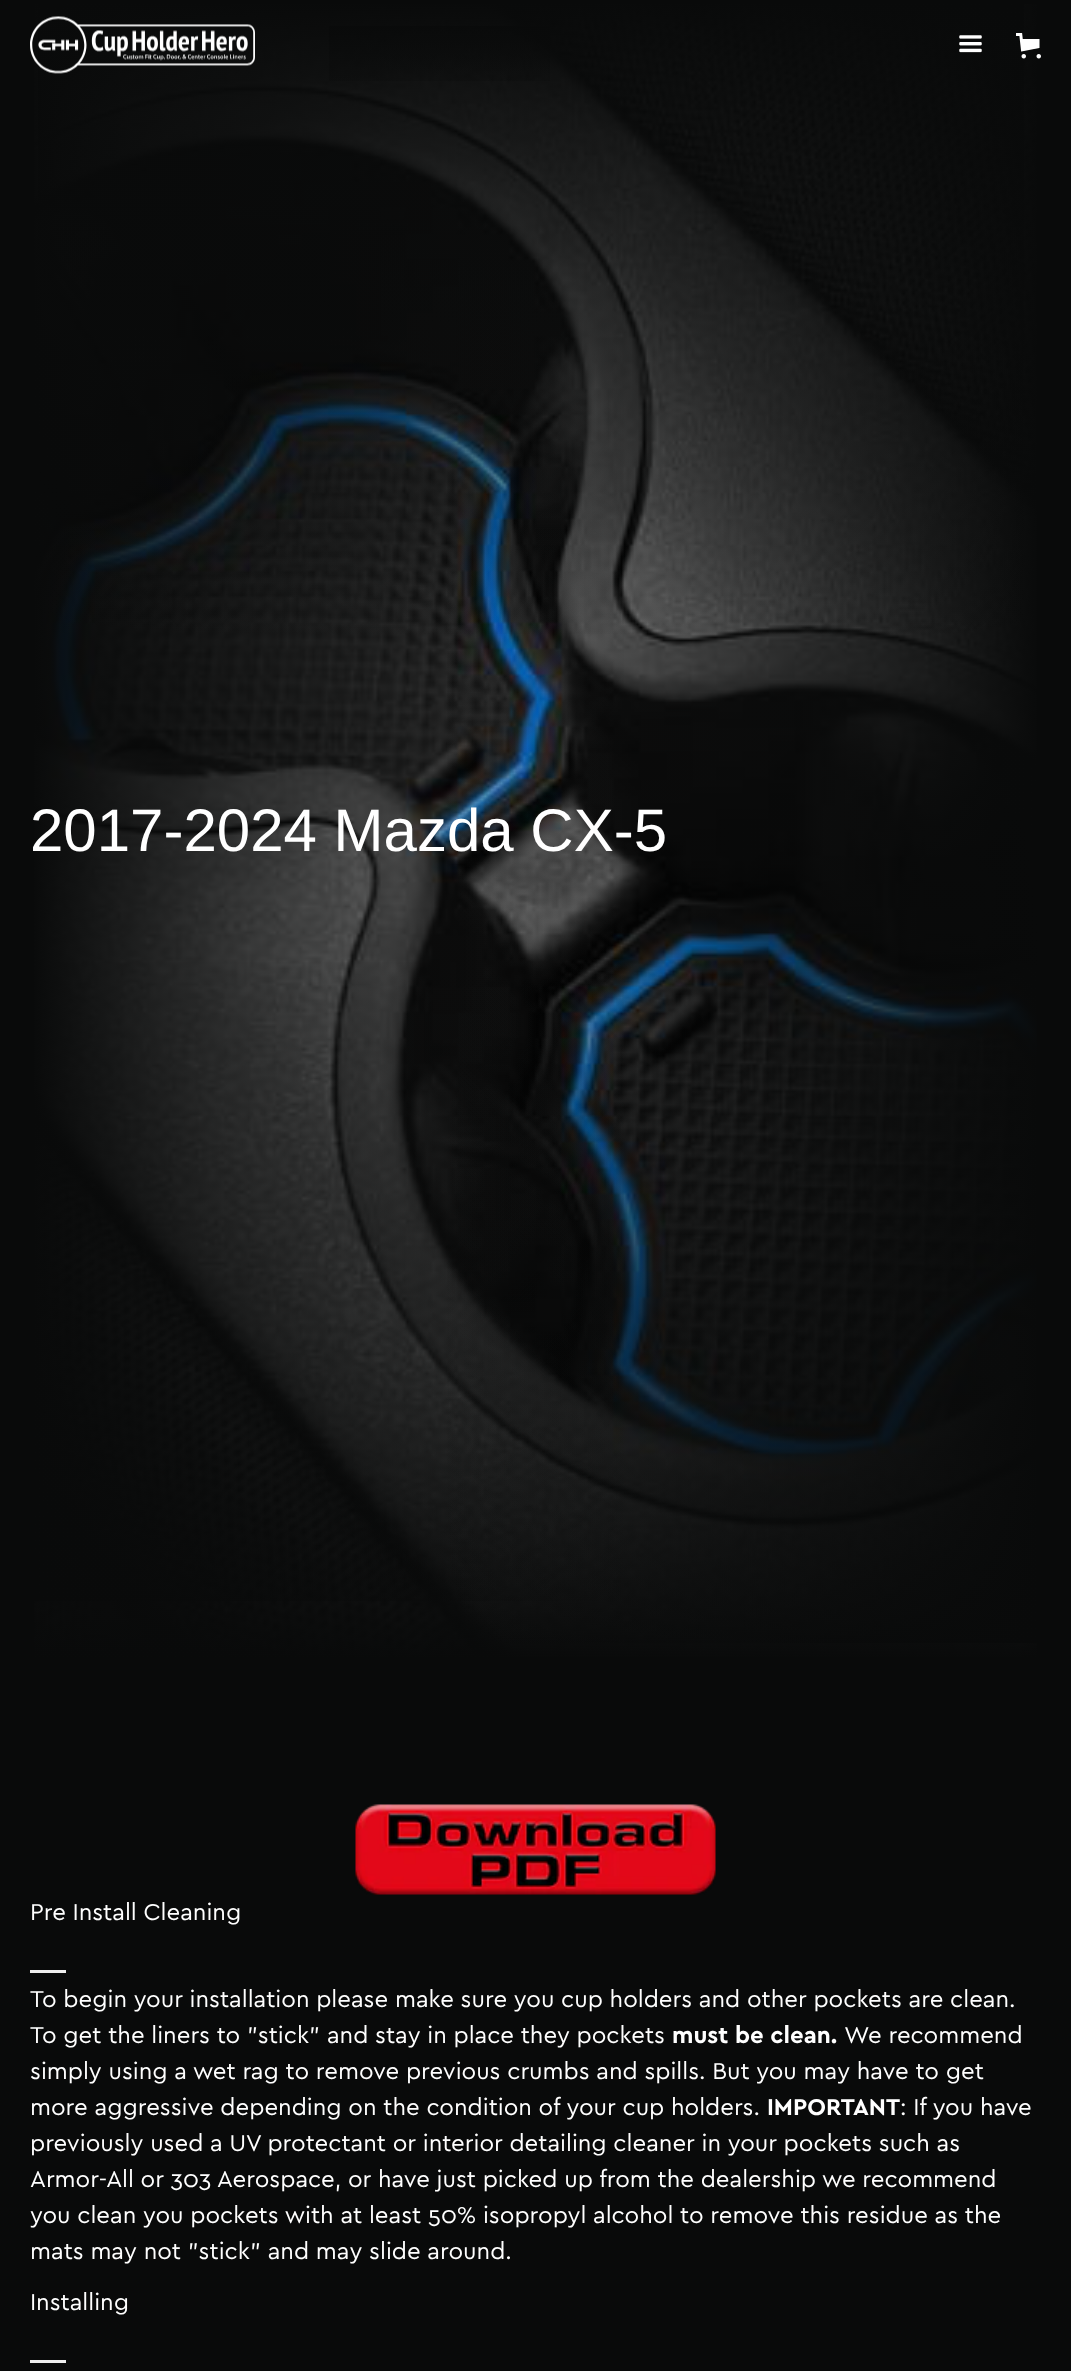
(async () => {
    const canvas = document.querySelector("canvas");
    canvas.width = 1071;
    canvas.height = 2371;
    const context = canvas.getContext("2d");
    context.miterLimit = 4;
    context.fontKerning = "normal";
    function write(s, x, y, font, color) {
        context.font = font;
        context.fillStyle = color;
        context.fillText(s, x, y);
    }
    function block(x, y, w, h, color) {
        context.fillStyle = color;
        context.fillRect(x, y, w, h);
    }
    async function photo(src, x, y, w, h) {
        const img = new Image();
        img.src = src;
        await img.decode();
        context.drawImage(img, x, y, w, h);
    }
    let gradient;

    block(0, 0, 1071, 2371, "rgb(9, 10, 10)");
    await photo("media/4.png", 34, 4, 1003, 1653);
    gradient = context.createLinearGradient(536, 1661, 536, 0);
    gradient.addColorStop(0, "rgb(9, 10, 10)");
    gradient.addColorStop(0.43, "rgba(9, 10, 10, 0)");
    context.fillStyle = gradient;
    context.fillRect(34, 962, 1003, 695);
    gradient = context.createLinearGradient(30, 830, 1041, 830);
    gradient.addColorStop(0, "rgb(9, 10, 10)");
    gradient.addColorStop(0.6, "rgba(9, 10, 10, 0)");
    context.fillStyle = gradient;
    context.fillRect(34, 4, 590, 1597);
    gradient = context.createLinearGradient(30, 830, 1041, 830);
    gradient.addColorStop(0.4, "rgba(9, 10, 10, 0)");
    gradient.addColorStop(1, "rgb(9, 10, 10)");
    context.fillStyle = gradient;
    context.fillRect(447, 4, 590, 1639);
    gradient = context.createLinearGradient(535, 0, 536, 1661);
    gradient.addColorStop(0, "rgb(9, 10, 10)");
    gradient.addColorStop(0.39, "rgba(9, 10, 10, 0)");
    context.fillStyle = gradient;
    context.fillRect(38, 4, 986, 630);
    gradient = context.createLinearGradient(536, 0, 536, 105);
    gradient.addColorStop(0, "rgb(9, 10, 10)");
    gradient.addColorStop(1, "rgba(9, 10, 10, 0)");
    context.fillStyle = gradient;
    context.fillRect(329, 26, 221, 55);
    await photo("media/1.png", 30, 16, 225, 58);
    await photo("media/2.png", 959, 35, 23, 18);
    await photo("media/3.png", 1016, 33, 25, 26);
    write("2017-2024 Mazda CX-5", 30, 851, "60px Liberation Sans", "rgb(255, 255, 255)");
    await photo("media/5.png", 355, 1804, 361, 91);
    write("Pre Install Cleaning", 30, 1920, "24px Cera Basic", "rgb(255, 255, 255)");
    block(30, 1970, 36, 3, "rgb(239, 239, 239)");
    write("To begin your installation please make sure you cup holders and other pockets are clean.", 30, 2007, "24px Cera Basic", "rgb(255, 255, 255)");
    write("To get the liners to \"stick\" and stay in place they pockets", 30, 2043, "24px Cera Basic", "rgb(255, 255, 255)");
    write("must be clean.", 672, 2043, "bold 24px Cera Basic", "rgb(255, 255, 255)");
    write("We recommend", 844, 2043, "24px Cera Basic", "rgb(255, 255, 255)");
    write("simply using a wet rag to remove previous crumbs and spills. But you may have to get", 30, 2079, "24px Cera Basic", "rgb(255, 255, 255)");
    write("more aggressive depending on the condition of your cup holders.", 30, 2115, "24px Cera Basic", "rgb(255, 255, 255)");
    write("IMPORTANT", 767, 2115, "bold 24px Cera Basic", "rgb(255, 255, 255)");
    write(": If you have", 900, 2115, "24px Cera Basic", "rgb(255, 255, 255)");
    write("previously used a UV protectant or interior detailing cleaner in your pockets such as", 30, 2151, "24px Cera Basic", "rgb(255, 255, 255)");
    write("Armor-All or 303 Aerospace, or have just picked up from the dealership we recommend", 30, 2187, "24px Cera Basic", "rgb(255, 255, 255)");
    write("you clean you pockets with at least 50% isopropyl alcohol to remove this residue as the", 30, 2223, "24px Cera Basic", "rgb(255, 255, 255)");
    write("mats may not \"stick\" and may slide around.", 30, 2259, "24px Cera Basic", "rgb(255, 255, 255)");
    write("Installing", 30, 2310, "24px Cera Basic", "rgb(255, 255, 255)");
    block(30, 2360, 36, 3, "rgb(239, 239, 239)");
})();
